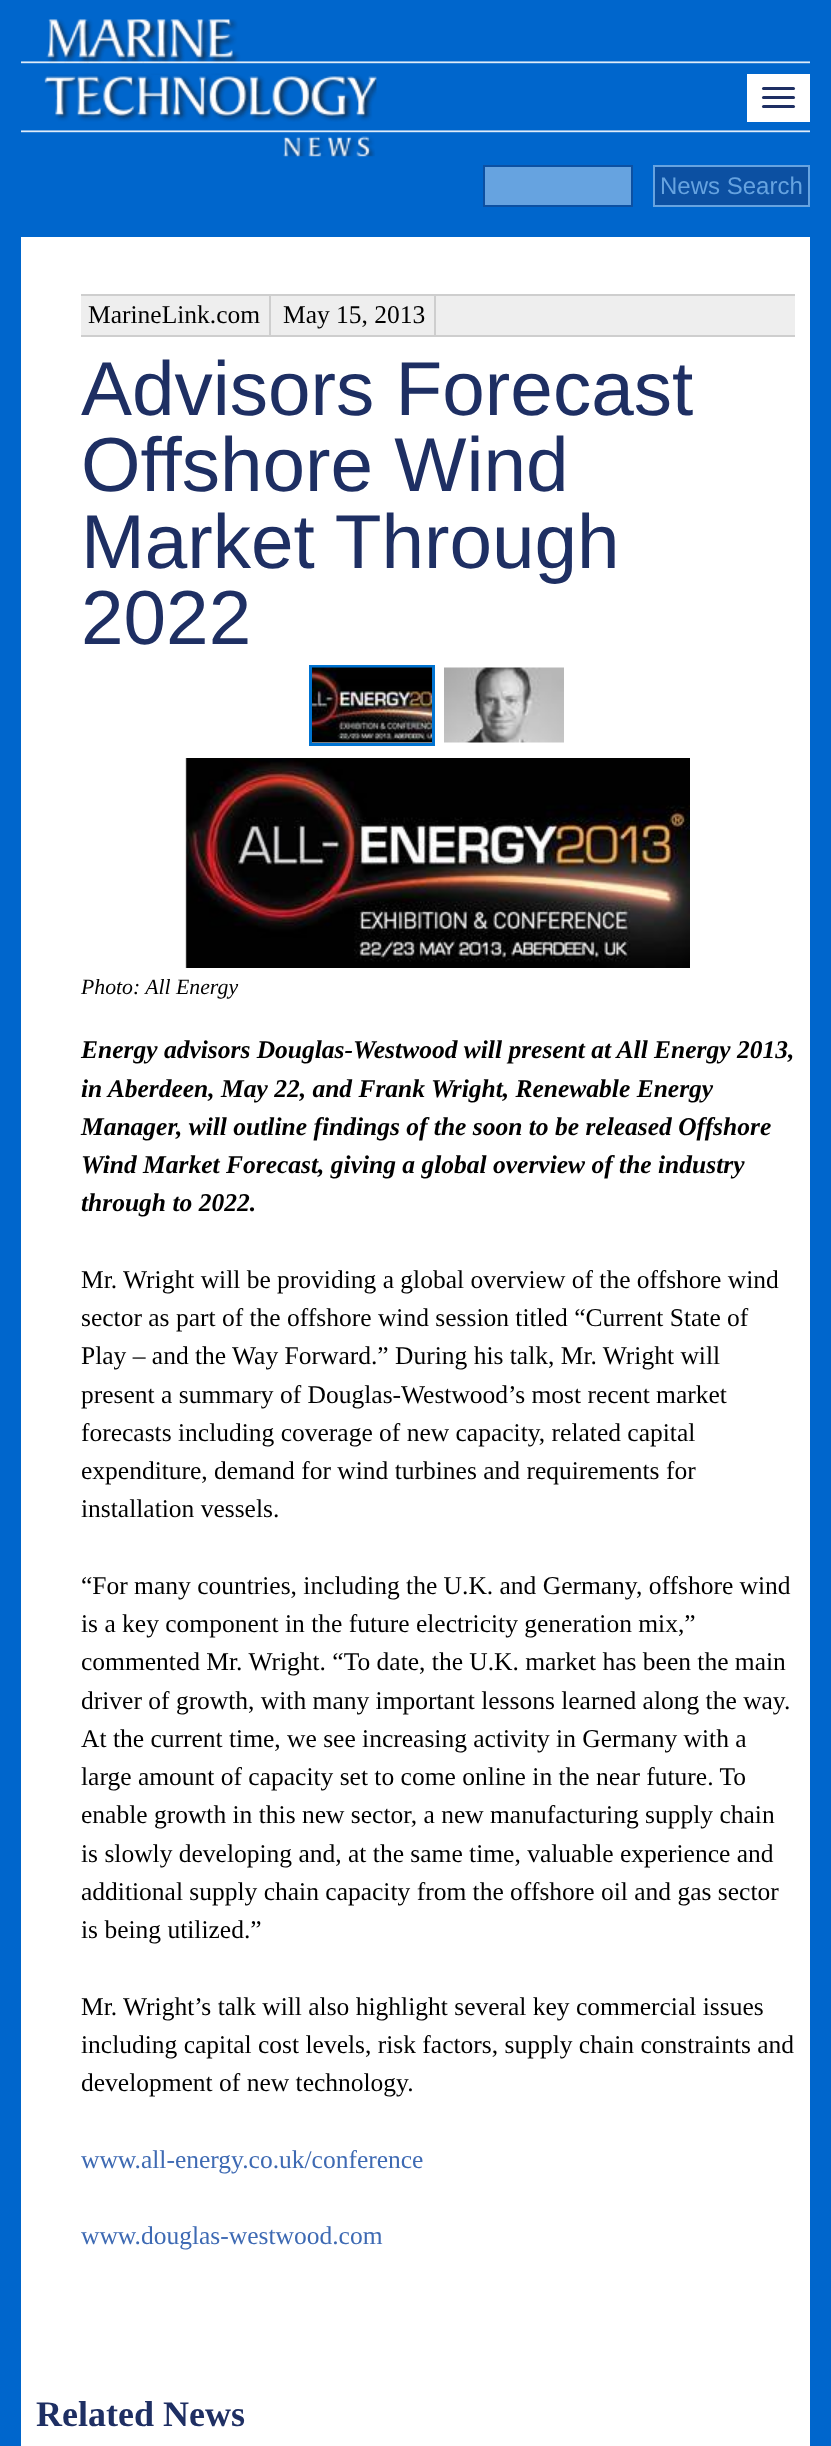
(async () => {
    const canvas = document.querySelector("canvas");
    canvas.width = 831;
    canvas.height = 2446;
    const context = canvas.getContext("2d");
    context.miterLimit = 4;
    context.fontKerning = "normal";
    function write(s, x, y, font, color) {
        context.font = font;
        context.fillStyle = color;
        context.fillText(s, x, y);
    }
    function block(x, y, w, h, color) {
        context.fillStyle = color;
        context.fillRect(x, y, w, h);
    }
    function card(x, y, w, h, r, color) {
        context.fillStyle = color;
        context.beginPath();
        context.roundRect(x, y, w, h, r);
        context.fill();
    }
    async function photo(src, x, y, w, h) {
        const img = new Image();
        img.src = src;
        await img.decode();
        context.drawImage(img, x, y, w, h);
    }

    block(0, 0, 831, 2446, "rgb(0, 102, 204)");
    await photo("media/1.png", 21, 19, 789, 138);
    block(747, 74, 63, 48, "rgb(255, 255, 255)");
    card(762, 87, 33, 3, 1.5, "rgb(30, 47, 99)");
    card(762, 96, 33, 3, 1.5, "rgb(30, 47, 99)");
    card(762, 105, 33, 3, 1.5, "rgb(30, 47, 99)");
    context.fillStyle = "rgb(102, 163, 224)";
    context.beginPath();
    context.rect(484, 166, 148, 40);
    context.fill();
    context.strokeStyle = "rgb(12, 80, 162)";
    context.lineWidth = 2;
    context.stroke();
    context.fillStyle = "rgb(12, 80, 162)";
    context.beginPath();
    context.rect(654, 166, 155, 40);
    context.fill();
    context.strokeStyle = "rgb(102, 163, 224)";
    context.stroke();
    write("News Search", 660, 194, "24px Liberation Sans", "rgb(102, 163, 224)");
    block(21, 237, 789, 2209, "rgb(255, 255, 255)");
    block(81, 296, 714, 39, "rgb(238, 238, 238)");
    block(81, 294, 714, 2, "rgb(206, 206, 206)");
    block(81, 335, 714, 2, "rgb(206, 206, 206)");
    block(269, 296, 2, 39, "rgb(206, 206, 206)");
    write("MarineLink.com", 88, 323, "25.5px Liberation Serif", "rgb(0, 0, 0)");
    block(434, 296, 2, 39, "rgb(206, 206, 206)");
    write("May 15, 2013", 283, 323, "25.5px Liberation Serif", "rgb(0, 0, 0)");
    write("Advisors Forecast", 81, 415, "76.5px Liberation Sans", "rgb(30, 47, 99)");
    write("Offshore Wind", 81, 491, "76.5px Liberation Sans", "rgb(30, 47, 99)");
    write("Market Through", 81, 568, "76.5px Liberation Sans", "rgb(30, 47, 99)");
    write("2022", 81, 644, "76.5px Liberation Sans", "rgb(30, 47, 99)");
    context.strokeStyle = "rgb(0, 115, 209)";
    context.lineWidth = 3;
    context.strokeRect(310.5, 666.5, 123, 78);
    await photo("media/2.png", 312, 667, 120, 76);
    await photo("media/3.png", 444, 667, 120, 76);
    await photo("media/4.png", 185, 758, 505, 210);
    write("Photo: All Energy", 81, 994, "italic 21.75px Liberation Serif", "rgb(0, 0, 0)");
    write("Energy advisors Douglas-Westwood will present at All Energy 2013,", 81, 1058, "italic bold 25.5px Liberation Serif", "rgb(0, 0, 0)");
    write("in Aberdeen, May 22, and Frank Wright, Renewable Energy", 81, 1097, "italic bold 25.5px Liberation Serif", "rgb(0, 0, 0)");
    write("Manager, will outline findings of the soon to be released Offshore", 81, 1135, "italic bold 25.5px Liberation Serif", "rgb(0, 0, 0)");
    write("Wind Market Forecast, giving a global overview of the industry", 81, 1173, "italic bold 25.5px Liberation Serif", "rgb(0, 0, 0)");
    write("through to 2022.", 81, 1211, "italic bold 25.5px Liberation Serif", "rgb(0, 0, 0)");
    write("Mr. Wright will be providing a global overview of the offshore wind", 81, 1288, "25.5px Liberation Serif", "rgb(0, 0, 0)");
    write("sector as part of the offshore wind session titled “Current State of", 81, 1326, "25.5px Liberation Serif", "rgb(0, 0, 0)");
    write("Play – and the Way Forward.” During his talk, Mr. Wright will", 81, 1364, "25.5px Liberation Serif", "rgb(0, 0, 0)");
    write("present a summary of Douglas-Westwood’s most recent market", 81, 1403, "25.5px Liberation Serif", "rgb(0, 0, 0)");
    write("forecasts including coverage of new capacity, related capital", 81, 1441, "25.5px Liberation Serif", "rgb(0, 0, 0)");
    write("expenditure, demand for wind turbines and requirements for", 81, 1479, "25.5px Liberation Serif", "rgb(0, 0, 0)");
    write("installation vessels.", 81, 1517, "25.5px Liberation Serif", "rgb(0, 0, 0)");
    write("“For many countries, including the U.K. and Germany, offshore wind", 81, 1594, "25.5px Liberation Serif", "rgb(0, 0, 0)");
    write("is a key component in the future electricity generation mix,”", 81, 1632, "25.5px Liberation Serif", "rgb(0, 0, 0)");
    write("commented Mr. Wright. “To date, the U.K. market has been the main", 81, 1670, "25.5px Liberation Serif", "rgb(0, 0, 0)");
    write("driver of growth, with many important lessons learned along the way.", 81, 1709, "25.5px Liberation Serif", "rgb(0, 0, 0)");
    write("At the current time, we see increasing activity in Germany with a", 81, 1747, "25.5px Liberation Serif", "rgb(0, 0, 0)");
    write("large amount of capacity set to come online in the near future. To", 81, 1785, "25.5px Liberation Serif", "rgb(0, 0, 0)");
    write("enable growth in this new sector, a new manufacturing supply chain", 81, 1823, "25.5px Liberation Serif", "rgb(0, 0, 0)");
    write("is slowly developing and, at the same time, valuable experience and", 81, 1862, "25.5px Liberation Serif", "rgb(0, 0, 0)");
    write("additional supply chain capacity from the offshore oil and gas sector", 81, 1900, "25.5px Liberation Serif", "rgb(0, 0, 0)");
    write("is being utilized.”", 81, 1938, "25.5px Liberation Serif", "rgb(0, 0, 0)");
    write("Mr. Wright’s talk will also highlight several key commercial issues", 81, 2015, "25.5px Liberation Serif", "rgb(0, 0, 0)");
    write("including capital cost levels, risk factors, supply chain constraints and", 81, 2053, "25.5px Liberation Serif", "rgb(0, 0, 0)");
    write("development of new technology.", 81, 2091, "25.5px Liberation Serif", "rgb(0, 0, 0)");
    write("www.all-energy.co.uk/conference", 81, 2168, "25.5px Liberation Serif", "rgb(62, 106, 179)");
    write("www.douglas-westwood.com", 81, 2244, "25.5px Liberation Serif", "rgb(62, 106, 179)");
    write("Related News", 36, 2426, "bold 36px Liberation Serif", "rgb(30, 47, 99)");
})();
